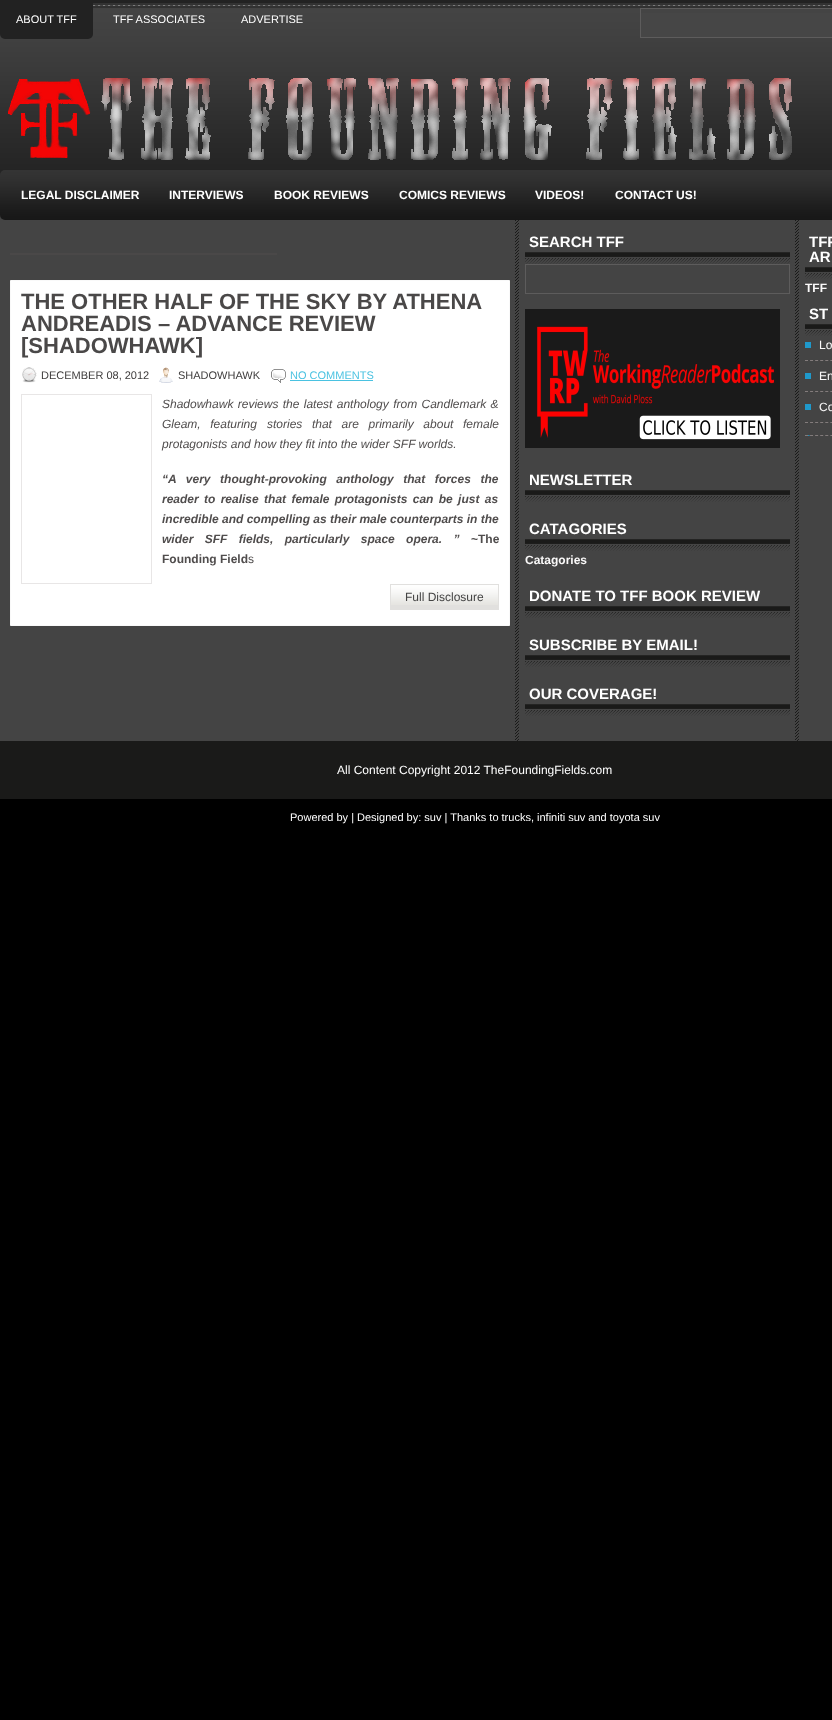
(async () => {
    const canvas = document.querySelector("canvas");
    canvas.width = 832;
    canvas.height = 1720;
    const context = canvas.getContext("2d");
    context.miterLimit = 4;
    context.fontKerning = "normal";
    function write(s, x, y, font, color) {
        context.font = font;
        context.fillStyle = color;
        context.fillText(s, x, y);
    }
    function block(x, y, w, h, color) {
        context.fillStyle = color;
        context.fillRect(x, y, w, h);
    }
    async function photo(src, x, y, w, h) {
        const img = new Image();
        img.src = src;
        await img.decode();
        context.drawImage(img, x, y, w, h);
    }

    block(0, 0, 832, 1720, "rgb(0, 0, 0)");
    await photo("media/1.png", 0, 0, 832, 175);
    context.fillStyle = "rgb(34, 34, 34)";
    context.beginPath();
    context.roundRect(0, 0, 93, 39, [0, 0, 5, 5]);
    context.fill();
    write("ABOUT TFF", 16, 23, "11px Liberation Sans", "rgb(255, 255, 255)");
    write("TFF ASSOCIATES", 113, 23, "11px Liberation Sans", "rgb(255, 255, 255)");
    write("ADVERTISE", 241, 23, "11px Liberation Sans", "rgb(255, 255, 255)");
    block(641, 13, 191, 24, "rgb(70, 70, 70)");
    context.strokeStyle = "rgb(93, 92, 92)";
    context.strokeRect(640.5, 8.5, 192, 29);
    await photo("media/2.png", 8, 78, 784, 82);
    block(0, 215, 832, 526, "rgb(68, 68, 68)");
    await photo("media/3.png", 0, 170, 832, 50);
    write("LEGAL DISCLAIMER", 21, 199, "bold 12px Liberation Sans", "rgb(255, 255, 255)");
    write("INTERVIEWS", 169, 199, "bold 12px Liberation Sans", "rgb(255, 255, 255)");
    write("BOOK REVIEWS", 274, 199, "bold 12px Liberation Sans", "rgb(255, 255, 255)");
    write("COMICS REVIEWS", 399, 199, "bold 12px Liberation Sans", "rgb(255, 255, 255)");
    write("VIDEOS!", 535, 199, "bold 12px Liberation Sans", "rgb(255, 255, 255)");
    write("CONTACT US!", 615, 199, "bold 12px Liberation Sans", "rgb(255, 255, 255)");
    await photo("media/4.png", 515, 220, 284, 521);
    block(10, 253, 267, 2, "rgb(74, 72, 72)");
    context.fillStyle = "rgb(255, 255, 255)";
    context.beginPath();
    context.rect(10.5, 280.5, 499, 345);
    context.fill();
    context.strokeStyle = "rgb(249, 249, 249)";
    context.stroke();
    write("THE OTHER HALF OF THE SKY BY ATHENA", 21, 309, "bold 22px Liberation Sans", "rgb(74, 72, 72)");
    write("ANDREADIS – ADVANCE REVIEW", 21, 331, "bold 22px Liberation Sans", "rgb(74, 72, 72)");
    write("[SHADOWHAWK]", 21, 353, "bold 22px Liberation Sans", "rgb(74, 72, 72)");
    await photo("media/5.png", 22, 367, 15, 16);
    write("DECEMBER 08, 2012", 41, 379, "11px Liberation Sans", "rgb(62, 60, 60)");
    await photo("media/6.png", 159, 367, 14, 16);
    write("SHADOWHAWK", 178, 379, "11px Liberation Sans", "rgb(62, 60, 60)");
    await photo("media/7.png", 271, 369, 15, 14);
    write("NO COMMENTS", 290, 379, "11px Liberation Sans", "rgb(74, 194, 225)");
    block(290, 380, 83, 1, "rgb(74, 194, 225)");
    context.strokeStyle = "rgb(232, 230, 230)";
    context.strokeRect(21.5, 394.5, 130, 189);
    context.wordSpacing = "1px";
    write("Shadowhawk reviews the latest anthology from Candlemark &", 162, 408, "italic 12px Liberation Sans", "rgb(80, 77, 77)");
    context.wordSpacing = "6.25px";
    write("Gleam, featuring", 162, 428, "italic 12px Liberation Sans", "rgb(80, 77, 77)");
    write("stories that are primarily about female", 267, 428, "italic 12px Liberation Sans", "rgb(80, 77, 77)");
    context.wordSpacing = "0px";
    write("protagonists and how they fit into the wider SFF worlds.", 162, 448, "italic 12px Liberation Sans", "rgb(80, 77, 77)");
    context.wordSpacing = "6.25px";
    write("“A very thought-provoking anthology that forces the", 162, 483, "italic bold 12px Liberation Sans", "rgb(80, 77, 77)");
    context.wordSpacing = "2px";
    write("reader to realise that female protagonists can be just as", 162, 503, "italic bold 12px Liberation Sans", "rgb(80, 77, 77)");
    context.wordSpacing = "0px";
    write("incredible and compelling as their male counterparts in the", 162, 523, "italic bold 12px Liberation Sans", "rgb(80, 77, 77)");
    context.wordSpacing = "8px";
    write("wider SFF fields, particularly space opera. ”", 162, 543, "italic bold 12px Liberation Sans", "rgb(80, 77, 77)");
    context.wordSpacing = "0px";
    write("~The", 471, 543, "bold 12px Liberation Sans", "rgb(80, 77, 77)");
    write("Founding Field", 162, 563, "bold 12px Liberation Sans", "rgb(80, 77, 77)");
    write("s", 248, 563, "12px Liberation Sans", "rgb(80, 77, 77)");
    block(391, 605, 107, 4, "rgb(225, 224, 222)");
    await photo("media/8.png", 391, 585, 107, 20);
    context.strokeStyle = "rgb(225, 224, 222)";
    context.strokeRect(390.5, 584.5, 108, 25);
    write("Full Disclosure", 405, 601, "12px Liberation Sans", "rgb(68, 68, 68)");
    await photo("media/9.png", 525, 252, 265, 12);
    write("SEARCH TFF", 529, 247, "bold 15px Liberation Sans", "rgb(255, 255, 255)");
    context.strokeStyle = "rgb(93, 92, 92)";
    context.strokeRect(525.5, 264.5, 264, 29);
    await photo("media/10.png", 525, 309, 255, 139);
    await photo("media/9.png", 525, 490, 265, 12);
    write("NEWSLETTER", 529, 485, "bold 15px Liberation Sans", "rgb(255, 255, 255)");
    await photo("media/9.png", 525, 539, 265, 12);
    write("CATAGORIES", 529, 534, "bold 15px Liberation Sans", "rgb(255, 255, 255)");
    write("Catagories", 525, 564, "bold 12px Liberation Sans", "rgb(250, 249, 249)");
    await photo("media/9.png", 525, 606, 265, 12);
    write("DONATE TO TFF BOOK REVIEW", 529, 601, "bold 15px Liberation Sans", "rgb(255, 255, 255)");
    await photo("media/9.png", 525, 655, 265, 12);
    write("SUBSCRIBE BY EMAIL!", 529, 650, "bold 15px Liberation Sans", "rgb(255, 255, 255)");
    await photo("media/9.png", 525, 704, 265, 12);
    write("OUR COVERAGE!", 529, 699, "bold 15px Liberation Sans", "rgb(255, 255, 255)");
    await photo("media/11.png", 805, 267, 27, 12);
    write("TFF", 809, 247, "bold 15px Liberation Sans", "rgb(255, 255, 255)");
    write("AR", 809, 262, "bold 15px Liberation Sans", "rgb(255, 255, 255)");
    write("TFF", 805, 292, "bold 12px Liberation Sans", "rgb(250, 249, 249)");
    await photo("media/11.png", 805, 324, 27, 12);
    write("ST", 809, 319, "bold 15px Liberation Sans", "rgb(255, 255, 255)");
    block(805, 342, 6, 6, "rgb(31, 153, 203)");
    context.beginPath();
    context.moveTo(805, 360.5);
    context.lineTo(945, 360.5);
    context.strokeStyle = "rgb(131, 124, 124)";
    context.setLineDash([3, 2.07]);
    context.stroke();
    write("Lo", 819, 349, "12px Liberation Sans", "rgb(250, 249, 249)");
    block(805, 373, 6, 6, "rgb(31, 153, 203)");
    context.beginPath();
    context.moveTo(805, 391.5);
    context.lineTo(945, 391.5);
    context.stroke();
    write("En", 819, 380, "12px Liberation Sans", "rgb(250, 249, 249)");
    block(805, 404, 6, 6, "rgb(31, 153, 203)");
    context.beginPath();
    context.moveTo(805, 422.5);
    context.lineTo(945, 422.5);
    context.stroke();
    write("Co", 819, 411, "12px Liberation Sans", "rgb(250, 249, 249)");
    await photo("media/12.png", 808, 435, 3, 1);
    context.beginPath();
    context.moveTo(805, 435.5);
    context.lineTo(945, 435.5);
    context.stroke();
    block(0, 741, 832, 58, "rgb(26, 26, 25)");
    write("All Content Copyright 2012 TheFoundingFields.com", 337, 774, "12px Liberation Sans", "rgb(255, 255, 255)");
    write("Powered by | Designed by: suv | Thanks to trucks, infiniti suv and toyota suv", 290, 821, "11px Liberation Sans", "rgb(255, 255, 255)");
})();
